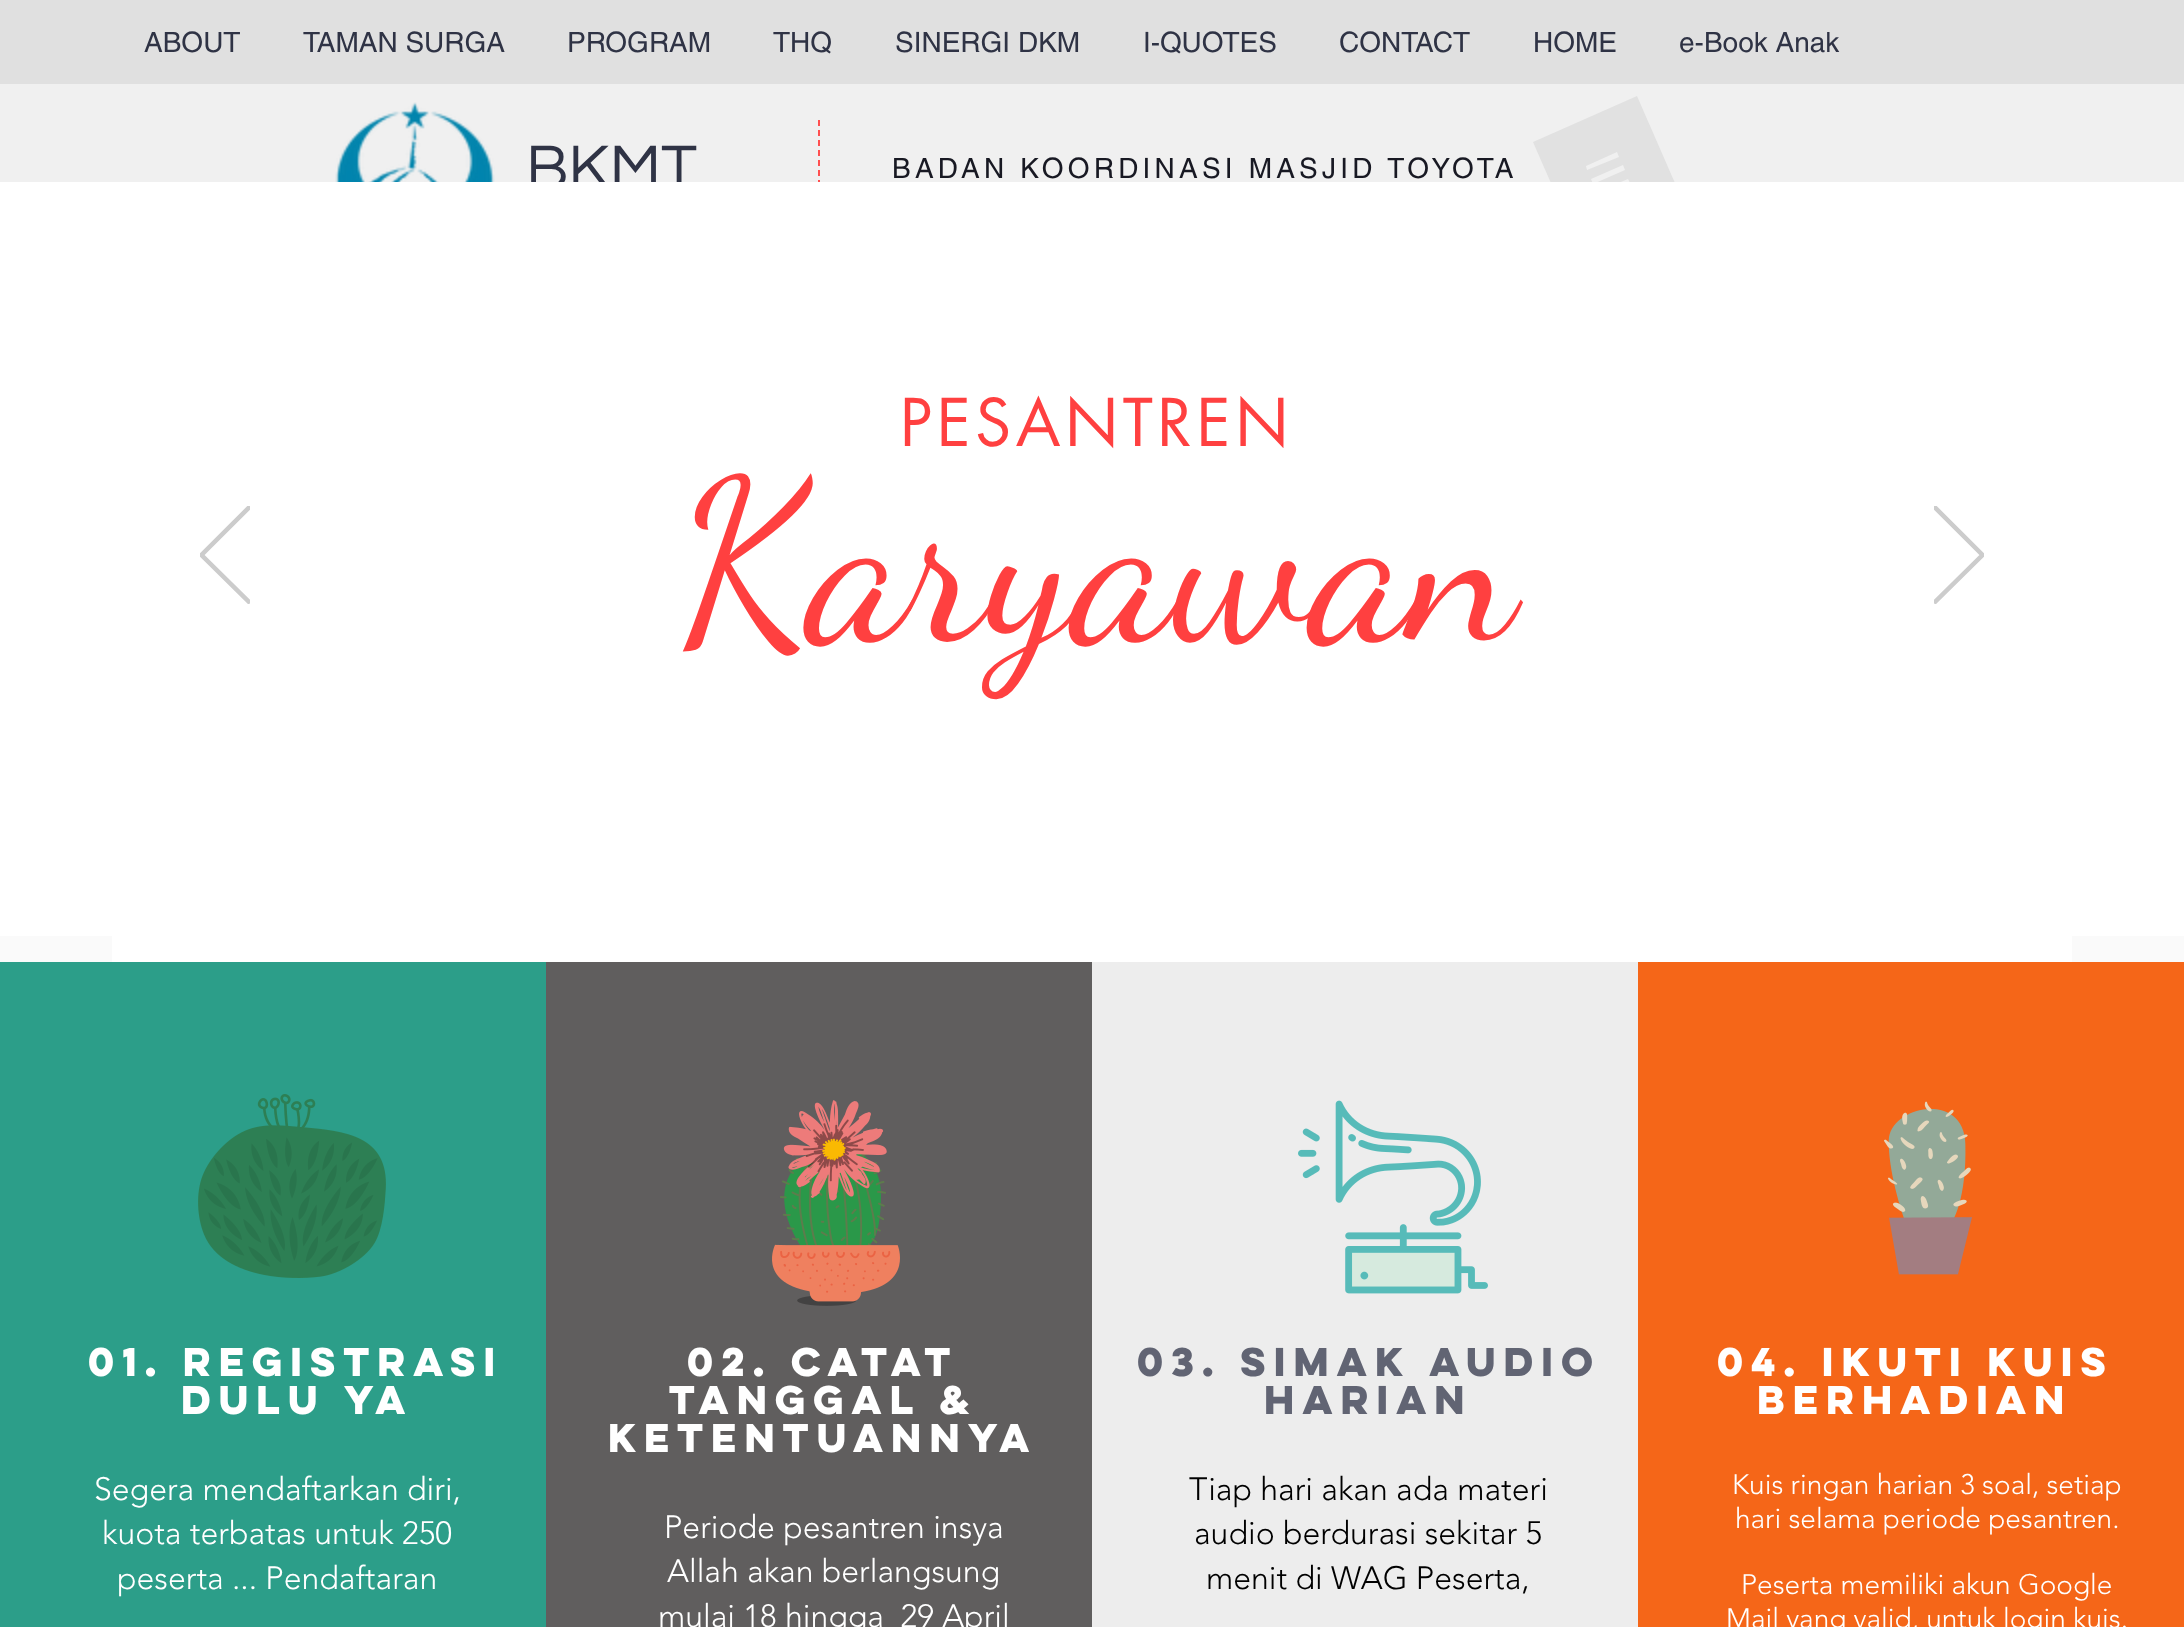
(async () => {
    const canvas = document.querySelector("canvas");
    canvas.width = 2184;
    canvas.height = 1627;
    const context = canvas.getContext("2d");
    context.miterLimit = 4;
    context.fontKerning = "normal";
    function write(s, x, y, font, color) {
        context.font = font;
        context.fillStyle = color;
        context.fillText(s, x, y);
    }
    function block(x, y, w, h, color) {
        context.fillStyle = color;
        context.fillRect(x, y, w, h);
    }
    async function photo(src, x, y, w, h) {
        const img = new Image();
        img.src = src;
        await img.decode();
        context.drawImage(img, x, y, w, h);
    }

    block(0, 0, 2184, 1627, "rgb(250, 250, 250)");
    block(0, 0, 2184, 84, "rgb(224, 224, 224)");
    write("ABOUT", 144, 52, "28px helvetica", "rgb(47, 51, 69)");
    write("TAMAN SURGA", 303, 52, "28px helvetica", "rgb(47, 51, 69)");
    write("PROGRAM", 567, 52, "28px helvetica", "rgb(47, 51, 69)");
    write("THQ", 773, 52, "28px helvetica", "rgb(47, 51, 69)");
    write("SINERGI DKM", 895, 52, "28px helvetica", "rgb(47, 51, 69)");
    write("I-QUOTES", 1143, 52, "28px helvetica", "rgb(47, 51, 69)");
    write("CONTACT", 1339, 52, "28px helvetica", "rgb(47, 51, 69)");
    write("HOME", 1533, 52, "28px helvetica", "rgb(47, 51, 69)");
    write("e-Book Anak", 1679, 52, "28px helvetica", "rgb(47, 51, 69)");
    block(0, 84, 2184, 98, "rgb(240, 240, 240)");
    await photo("media/1.png", 335, 102, 160, 80);
    write("BKMT", 526, 188, "64px Questrial", "rgb(47, 51, 69)");
    context.beginPath();
    context.moveTo(819, 120);
    context.lineTo(819, 216);
    context.strokeStyle = "rgb(255, 79, 79)";
    context.lineWidth = 2;
    context.setLineDash([6, 4]);
    context.stroke();
    context.letterSpacing = "4.2px";
    write("BADAN KOORDINASI MASJID TOYOTA", 892, 178, "28px helvetica", "rgb(24, 25, 35)");
    context.fillStyle = "rgb(225, 225, 225)";
    context.beginPath();
    context.moveTo(1533, 142);
    context.lineTo(1581, 252);
    context.lineTo(1685, 206);
    context.lineTo(1637, 96);
    context.closePath();
    context.moveTo(1630, 183);
    context.lineTo(1599, 197);
    context.lineTo(1597, 192);
    context.lineTo(1628, 179);
    context.closePath();
    context.moveTo(1625, 170);
    context.lineTo(1593, 184);
    context.lineTo(1591, 179);
    context.lineTo(1623, 165);
    context.closePath();
    context.moveTo(1619, 157);
    context.lineTo(1587, 170);
    context.lineTo(1586, 166);
    context.lineTo(1617, 152);
    context.closePath();
    context.fill();
    block(0, 182, 2184, 754, "rgb(255, 255, 255)");
    context.save();
    context.beginPath();
    context.rect(200, 506, 50, 98);
    context.clip();
    context.beginPath();
    context.moveTo(248.5, 603);
    context.lineTo(200, 555);
    context.lineTo(248.5, 506.5);
    context.lineTo(250, 508);
    context.lineTo(203, 555);
    context.lineTo(250, 601.5);
    context.closePath();
    context.strokeStyle = "rgb(204, 204, 204)";
    context.lineWidth = 2.4;
    context.setLineDash([]);
    context.stroke();
    context.restore();
    context.letterSpacing = "4.5px";
    write("PESANTREN", 900, 446, "64px futura", "rgb(255, 64, 64)");
    context.letterSpacing = "0px";
    write("Karyawan", 676, 636, "226px Dancing Script", "rgb(255, 64, 64)");
    context.save();
    context.beginPath();
    context.rect(1934, 506, 50, 98);
    context.clip();
    context.beginPath();
    context.moveTo(1935.5, 603);
    context.lineTo(1984, 555);
    context.lineTo(1935.5, 506.5);
    context.lineTo(1934, 508);
    context.lineTo(1981, 555);
    context.lineTo(1934, 601.5);
    context.closePath();
    context.strokeStyle = "rgb(204, 204, 204)";
    context.lineWidth = 2.4;
    context.setLineDash([]);
    context.stroke();
    context.restore();
    block(0, 962, 546, 665, "rgb(44, 158, 137)");
    await photo("media/2.png", 198, 1094, 188, 184);
    write("01. REGISTRASI", 88, 1376, "bold 36px 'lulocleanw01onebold'", "rgb(255, 255, 255)");
    write("DULU YA", 181, 1414, "bold 36px 'lulocleanw01onebold'", "rgb(255, 255, 255)");
    write("Segera mendaftarkan diri,", 94, 1500, "300 32px 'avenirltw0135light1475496'", "rgb(255, 255, 255)");
    write("kuota terbatas untuk 250", 102, 1544, "300 32px 'avenirltw0135light1475496'", "rgb(255, 255, 255)");
    write("peserta ... Pendaftaran", 117, 1589, "300 32px 'avenirltw0135light1475496'", "rgb(255, 255, 255)");
    block(546, 962, 546, 665, "rgb(96, 94, 94)");
    await photo("media/3.png", 772, 1100, 128, 206);
    write("02. CATAT", 687, 1376, "bold 36px 'lulocleanw01onebold'", "rgb(255, 255, 255)");
    write("TANGGAL &", 669, 1414, "bold 36px 'lulocleanw01onebold'", "rgb(255, 255, 255)");
    write("KETENTUANNYA", 608, 1452, "bold 36px 'lulocleanw01onebold'", "rgb(255, 255, 255)");
    write("Periode pesantren insya", 664, 1538, "300 32px 'avenirltw0135light1475496'", "rgb(255, 255, 255)");
    write("Allah akan berlangsung", 667, 1582, "300 32px 'avenirltw0135light1475496'", "rgb(255, 255, 255)");
    write("mulai 18 hingga  29 April", 658, 1627, "300 32px 'avenirltw0135light1475496'", "rgb(255, 255, 255)");
    block(1092, 962, 546, 665, "rgb(237, 237, 237)");
    await photo("media/4.png", 1298, 1100, 190, 194);
    write("03. SIMAK AUDIO", 1137, 1376, "bold 36px 'lulocleanw01onebold'", "rgb(97, 100, 115)");
    write("HARIAN", 1264, 1414, "bold 36px 'lulocleanw01onebold'", "rgb(97, 100, 115)");
    write("Tiap hari akan ada materi", 1189, 1500, "300 32px 'avenirltw0135light1475496'", "rgb(0, 0, 0)");
    write("audio berdurasi sekitar 5", 1194, 1544, "300 32px 'avenirltw0135light1475496'", "rgb(0, 0, 0)");
    write("menit di WAG Peserta,", 1206, 1589, "300 32px 'avenirltw0135light1475496'", "rgb(0, 0, 0)");
    block(1638, 962, 546, 665, "rgb(245, 102, 24)");
    await photo("media/5.png", 1884, 1101, 88, 174);
    write("04. IKUTI KUIS", 1717, 1376, "bold 36px 'lulocleanw01onebold'", "rgb(255, 255, 255)");
    write("BERHADIAN", 1757, 1414, "bold 36px 'lulocleanw01onebold'", "rgb(255, 255, 255)");
    write("Kuis ringan harian 3 soal, setiap", 1732, 1494, "300 28px 'avenirltw0135light1475496'", "rgb(255, 255, 255)");
    write("hari selama periode pesantren.", 1735, 1528, "300 28px 'avenirltw0135light1475496'", "rgb(255, 255, 255)");
    write("Peserta memiliki akun Google", 1741, 1594, "300 28px 'avenirltw0135light1475496'", "rgb(255, 255, 255)");
    write("Mail yang valid, untuk login kuis.", 1726, 1628, "300 28px 'avenirltw0135light1475496'", "rgb(255, 255, 255)");
    block(112, 936, 1960, 26, "rgb(255, 255, 255)");
})();
